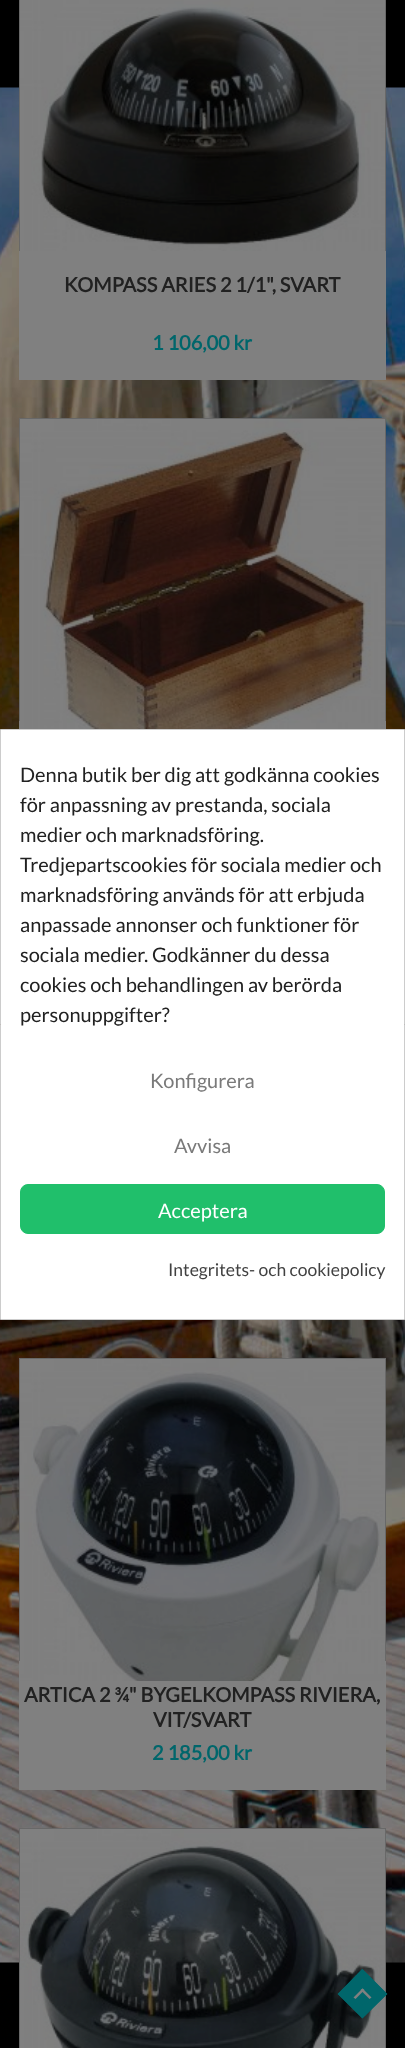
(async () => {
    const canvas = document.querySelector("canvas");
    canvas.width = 405;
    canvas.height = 2048;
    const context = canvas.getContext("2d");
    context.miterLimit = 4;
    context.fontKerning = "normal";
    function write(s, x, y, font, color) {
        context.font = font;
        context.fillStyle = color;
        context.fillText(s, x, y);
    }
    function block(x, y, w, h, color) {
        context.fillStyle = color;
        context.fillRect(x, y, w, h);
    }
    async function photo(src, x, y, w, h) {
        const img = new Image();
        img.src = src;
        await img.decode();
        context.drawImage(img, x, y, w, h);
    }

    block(0, 0, 405, 2048, "rgb(0, 0, 0)");
    await photo("media/1.png", 0, 87, 405, 1876);
    block(19, 251, 367, 129, "rgb(128, 128, 128)");
    context.strokeStyle = "rgb(104, 104, 104)";
    context.strokeRect(19.5, -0.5, 366, 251);
    await photo("media/2.png", 20, 0, 365, 251);
    write("KOMPASS ARIES 2 1/1\", SVART", 64, 292, "bold 20px Lato", "rgb(33, 33, 33)");
    write("1 106,00 kr", 152, 350, "bold 20px Lato", "rgb(0, 102, 107)");
    block(19, 721, 367, 8, "rgb(128, 128, 128)");
    context.strokeRect(19.5, 418.5, 366, 302);
    await photo("media/3.png", 20, 419, 365, 310);
    block(19, 1661, 367, 129, "rgb(128, 128, 128)");
    context.strokeRect(19.5, 1358.5, 366, 302);
    await photo("media/4.png", 20, 1359, 365, 322);
    write("ARTICA 2 ¾\" BYGELKOMPASS RIVIERA,", 24, 1702, "bold 20px Lato", "rgb(33, 33, 33)");
    write("VIT/SVART", 153, 1727, "bold 20px Lato", "rgb(33, 33, 33)");
    write("2 185,00 kr", 152, 1760, "bold 20px Lato", "rgb(0, 102, 107)");
    context.strokeRect(19.5, 1828.5, 366, 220);
    await photo("media/5.png", 20, 1829, 365, 219);
    context.beginPath();
    context.moveTo(338, 1994);
    context.lineTo(362, 1969);
    context.lineTo(387, 1994);
    context.lineTo(362, 2018);
    context.closePath();
    context.fill();
    context.beginPath();
    context.moveTo(338.5, 1994);
    context.lineTo(362.5, 1970);
    context.lineTo(386.5, 1994);
    context.lineTo(362.5, 2017.5);
    context.closePath();
    context.strokeStyle = "rgb(0, 102, 107)";
    context.lineWidth = 1.3;
    context.stroke();
    context.fillStyle = "rgb(128, 128, 128)";
    context.beginPath();
    context.moveTo(353.5, 1997.5);
    context.lineTo(362.5, 1988.5);
    context.lineTo(364.5, 1990);
    context.lineTo(355.5, 1999);
    context.closePath();
    context.fill();
    context.beginPath();
    context.moveTo(360.5, 1990);
    context.lineTo(362.5, 1988.5);
    context.lineTo(371.5, 1997.5);
    context.lineTo(369.5, 1999);
    context.closePath();
    context.fill();
    context.fillStyle = "rgb(255, 255, 255)";
    context.beginPath();
    context.rect(0.5, 729.5, 404, 590);
    context.fill();
    context.strokeStyle = "rgb(204, 204, 204)";
    context.lineWidth = 1;
    context.stroke();
    write("Denna butik ber dig att godkänna cookies", 20, 782, "20px Lato", "rgb(33, 33, 33)");
    write("för anpassning av prestanda, sociala", 20, 812, "20px Lato", "rgb(33, 33, 33)");
    write("medier och marknadsföring.", 20, 842, "20px Lato", "rgb(33, 33, 33)");
    write("Tredjepartscookies för sociala medier och", 20, 872, "20px Lato", "rgb(33, 33, 33)");
    write("marknadsföring används för att erbjuda", 20, 902, "20px Lato", "rgb(33, 33, 33)");
    write("anpassade annonser och funktioner för", 20, 932, "20px Lato", "rgb(33, 33, 33)");
    write("sociala medier. Godkänner du dessa", 20, 962, "20px Lato", "rgb(33, 33, 33)");
    write("cookies och behandlingen av berörda", 20, 992, "20px Lato", "rgb(33, 33, 33)");
    write("personuppgifter?", 20, 1022, "20px Lato", "rgb(33, 33, 33)");
    write("Konfigurera", 150, 1088, "20px Lato", "rgb(122, 122, 122)");
    write("Avvisa", 174, 1153, "20px Lato", "rgb(122, 122, 122)");
    context.fillStyle = "rgb(32, 191, 107)";
    context.beginPath();
    context.roundRect(20.5, 1184.5, 364, 49, 7.5);
    context.fill();
    context.strokeStyle = "rgb(32, 191, 107)";
    context.stroke();
    write("Acceptera", 158, 1218, "20px Lato", "rgb(255, 255, 255)");
    write("Integritets- och cookiepolicy", 168, 1276, "17.5px Lato", "rgb(65, 65, 65)");
})();
